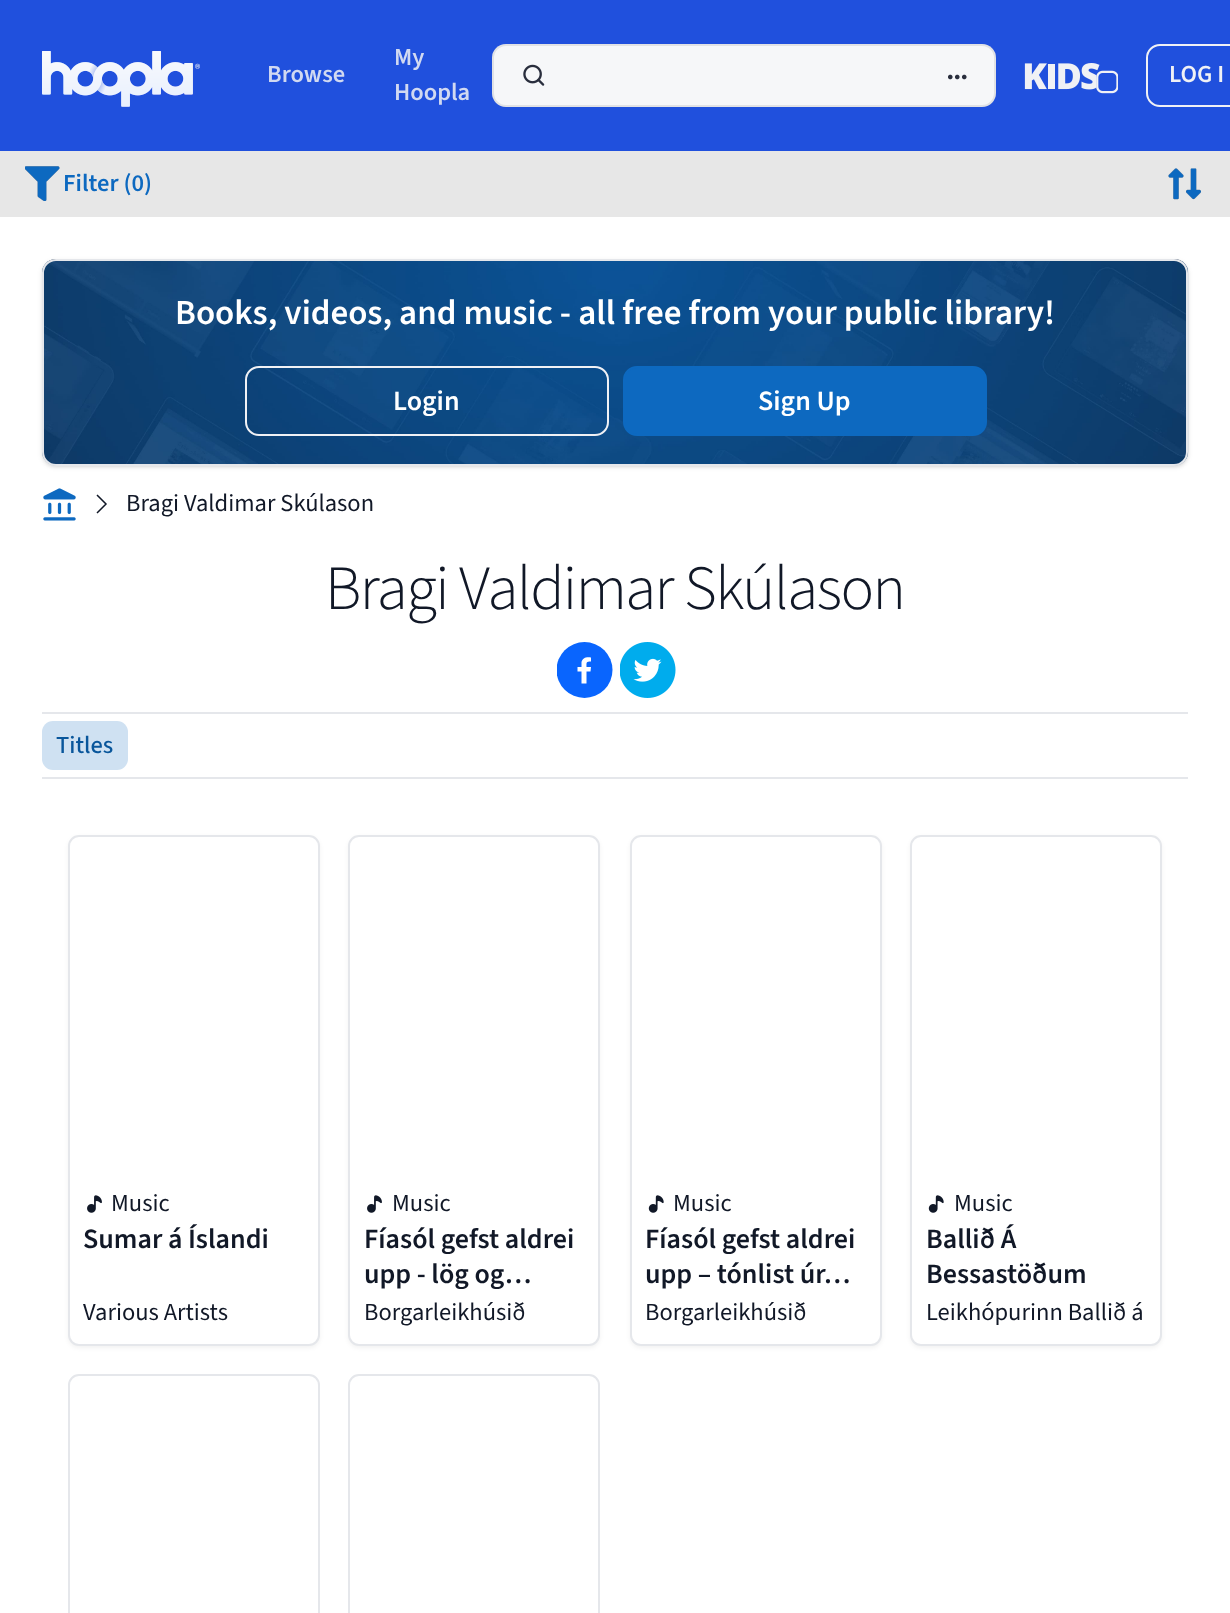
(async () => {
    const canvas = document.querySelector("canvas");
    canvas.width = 1230;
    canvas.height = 1613;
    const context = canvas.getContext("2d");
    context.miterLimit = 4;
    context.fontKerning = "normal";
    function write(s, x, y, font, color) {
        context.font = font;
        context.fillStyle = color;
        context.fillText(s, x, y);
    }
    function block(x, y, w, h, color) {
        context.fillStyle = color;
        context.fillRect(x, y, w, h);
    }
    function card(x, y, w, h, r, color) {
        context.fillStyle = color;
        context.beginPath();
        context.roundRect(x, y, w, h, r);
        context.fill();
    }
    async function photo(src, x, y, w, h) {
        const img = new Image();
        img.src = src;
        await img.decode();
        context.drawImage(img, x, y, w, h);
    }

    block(0, 0, 1230, 1613, "rgb(255, 255, 255)");
    block(0, 0, 1230, 151, "rgb(32, 80, 221)");
    await photo("media/1.png", 42, 51, 158, 56);
    write("Browse", 267, 82, "600 24.5px 'Source Sans 3'", "rgb(209, 217, 241)");
    write("My", 394, 65, "600 24.5px 'Source Sans 3'", "rgb(209, 217, 241)");
    write("Hoopla", 394, 100, "600 24.5px 'Source Sans 3'", "rgb(209, 217, 241)");
    card(492, 44, 504, 63, 14, "rgb(246, 247, 249)");
    context.beginPath();
    context.roundRect(493, 45, 502, 61, 13);
    context.strokeStyle = "rgba(41, 46, 61, 0.1)";
    context.lineWidth = 2;
    context.stroke();
    await photo("media/2.png", 523, 64, 22, 22);
    await photo("media/3.png", 948, 74, 19, 6);
    await photo("media/4.png", 1024, 63, 94, 31);
    context.beginPath();
    context.roundRect(1147, 45, 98, 61, 13);
    context.strokeStyle = "rgb(240, 241, 245)";
    context.stroke();
    write("LOG I", 1169, 82, "600 24.5px 'Source Sans 3'", "rgb(240, 241, 245)");
    block(0, 151, 1230, 66, "rgb(231, 231, 231)");
    await photo("media/5.png", 25, 166, 35, 35);
    write("Filter (0)", 63, 191, "600 24.5px 'Source Sans 3'", "rgb(13, 105, 192)");
    await photo("media/6.png", 1168, 168, 16, 32);
    await photo("media/7.png", 1186, 168, 15, 32);
    context.fillStyle = "rgba(0, 0, 0, 0.1)";
    context.filter = "blur(2px)";
    context.beginPath();
    context.roundRect(44, 263, 1143, 203, 12);
    context.fill();
    context.filter = "none";
    context.filter = "blur(2.5px)";
    context.beginPath();
    context.roundRect(42, 261, 1146, 206, 14);
    context.fill();
    context.filter = "none";
    await photo("media/8.png", 42, 259, 1147, 207);
    context.beginPath();
    context.roundRect(43, 260, 1144, 205, 13);
    context.strokeStyle = "rgb(229, 231, 235)";
    context.stroke();
    write("Books, videos, and music - all free from your public library!", 175, 324, "600 35px 'Source Sans 3'", "rgb(255, 255, 255)");
    context.beginPath();
    context.roundRect(246, 367, 362, 68, 13);
    context.strokeStyle = "rgb(240, 241, 245)";
    context.stroke();
    write("Login", 393, 410, "600 28px 'Source Sans 3'", "rgb(255, 255, 255)");
    context.fillStyle = "rgb(13, 105, 192)";
    context.beginPath();
    context.roundRect(624, 367, 362, 68, 13);
    context.fill();
    context.strokeStyle = "rgb(13, 105, 192)";
    context.stroke();
    write("Sign Up", 758, 410, "600 28px 'Source Sans 3'", "rgb(255, 255, 255)");
    await photo("media/9.png", 43, 488, 33, 33);
    context.beginPath();
    context.moveTo(97, 513);
    context.lineTo(106, 504);
    context.lineTo(97, 495);
    context.strokeStyle = "rgb(17, 24, 39)";
    context.lineWidth = 1.5;
    context.stroke();
    write("Bragi Valdimar Skúlason", 126, 511, "24.5px 'Source Sans 3'", "rgb(17, 24, 39)");
    context.letterSpacing = "-1.6px";
    write("Bragi Valdimar Skúlason", 325, 609, "300 63px 'Source Sans 3'", "rgb(17, 24, 39)");
    context.save();
    context.beginPath();
    context.rect(557, 642, 56, 56);
    context.clip();
    context.fillStyle = "rgb(9, 101, 254)";
    context.beginPath();
    context.arc(584.5, 670, 28, 0, Math.PI * 2);
    context.fill();
    context.restore();
    context.fillStyle = "rgb(255, 255, 255)";
    context.beginPath();
    context.moveTo(586.5, 683.5);
    context.lineTo(586.5, 671.5);
    context.lineTo(590.5, 671.5);
    context.lineTo(591, 667);
    context.lineTo(586.5, 667);
    context.bezierCurveTo(586.5, 662, 586, 661.5, 591, 661.5);
    context.lineTo(591, 657.5);
    context.bezierCurveTo(587, 656.5, 582.5, 657.5, 581.5, 662);
    context.lineTo(581.5, 667);
    context.lineTo(577.5, 667);
    context.lineTo(577.5, 671.5);
    context.lineTo(581.5, 671.5);
    context.lineTo(581.5, 683.5);
    context.closePath();
    context.fill();
    await photo("media/10.png", 620, 642, 56, 56);
    block(42, 712, 1146, 2, "rgb(229, 231, 235)");
    block(42, 777, 1146, 2, "rgb(229, 231, 235)");
    card(42, 721, 86, 49, 11, "rgb(207, 225, 242)");
    context.letterSpacing = "0px";
    write("Titles", 56, 753, "500 24.5px 'Source Sans 3'", "rgb(9, 86, 155)");
    context.fillStyle = "rgba(0, 0, 0, 0.05)";
    context.filter = "blur(2px)";
    context.beginPath();
    context.roundRect(68, 837, 252, 511, 11);
    context.fill();
    context.filter = "none";
    context.fillStyle = "rgb(255, 255, 255)";
    context.beginPath();
    context.roundRect(69, 836, 250, 509, 10);
    context.fill();
    context.strokeStyle = "rgb(229, 231, 235)";
    context.lineWidth = 2;
    context.stroke();
    await photo("media/11.png", 87, 1195, 15, 18);
    write("Music", 111, 1211, "24.5px 'Source Sans 3'", "rgb(17, 24, 39)");
    write("Sumar á Íslandi", 83, 1248, "600 28px 'Source Sans 3'", "rgb(17, 24, 39)");
    write("Various Artists", 83, 1320, "24.5px 'Source Sans 3'", "rgb(17, 24, 39)");
    context.fillStyle = "rgba(0, 0, 0, 0.05)";
    context.filter = "blur(2px)";
    context.beginPath();
    context.roundRect(348, 837, 252, 511, 11);
    context.fill();
    context.filter = "none";
    context.fillStyle = "rgb(255, 255, 255)";
    context.beginPath();
    context.roundRect(349, 836, 250, 509, 10);
    context.fill();
    context.stroke();
    await photo("media/11.png", 367, 1195, 15, 18);
    write("Music", 392, 1211, "24.5px 'Source Sans 3'", "rgb(17, 24, 39)");
    write("Fíasól gefst aldrei", 364, 1248, "600 28px 'Source Sans 3'", "rgb(17, 24, 39)");
    write("upp - lög og…", 364, 1283, "600 28px 'Source Sans 3'", "rgb(17, 24, 39)");
    write("Borgarleikhúsið", 364, 1320, "24.5px 'Source Sans 3'", "rgb(17, 24, 39)");
    context.fillStyle = "rgba(0, 0, 0, 0.05)";
    context.filter = "blur(2px)";
    context.beginPath();
    context.roundRect(630, 837, 252, 511, 11);
    context.fill();
    context.filter = "none";
    context.fillStyle = "rgb(255, 255, 255)";
    context.beginPath();
    context.roundRect(631, 836, 250, 509, 10);
    context.fill();
    context.stroke();
    await photo("media/12.png", 648, 1195, 16, 18);
    write("Music", 673, 1211, "24.5px 'Source Sans 3'", "rgb(17, 24, 39)");
    write("Fíasól gefst aldrei", 645, 1248, "600 28px 'Source Sans 3'", "rgb(17, 24, 39)");
    write("upp – tónlist úr…", 645, 1283, "600 28px 'Source Sans 3'", "rgb(17, 24, 39)");
    write("Borgarleikhúsið", 645, 1320, "24.5px 'Source Sans 3'", "rgb(17, 24, 39)");
    context.fillStyle = "rgba(0, 0, 0, 0.05)";
    context.filter = "blur(2px)";
    context.beginPath();
    context.roundRect(910, 837, 252, 511, 11);
    context.fill();
    context.filter = "none";
    context.fillStyle = "rgb(255, 255, 255)";
    context.beginPath();
    context.roundRect(911, 836, 250, 509, 10);
    context.fill();
    context.stroke();
    await photo("media/12.png", 928, 1195, 16, 18);
    write("Music", 954, 1211, "24.5px 'Source Sans 3'", "rgb(17, 24, 39)");
    write("Ballið Á", 926, 1248, "600 28px 'Source Sans 3'", "rgb(17, 24, 39)");
    write("Bessastöðum", 926, 1283, "600 28px 'Source Sans 3'", "rgb(17, 24, 39)");
    write("Leikhópurinn Ballið á", 926, 1320, "24.5px 'Source Sans 3'", "rgb(17, 24, 39)");
    context.beginPath();
    context.roundRect(69, 1375, 250, 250, 10);
    context.stroke();
    context.beginPath();
    context.roundRect(349, 1375, 250, 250, 10);
    context.stroke();
})();
